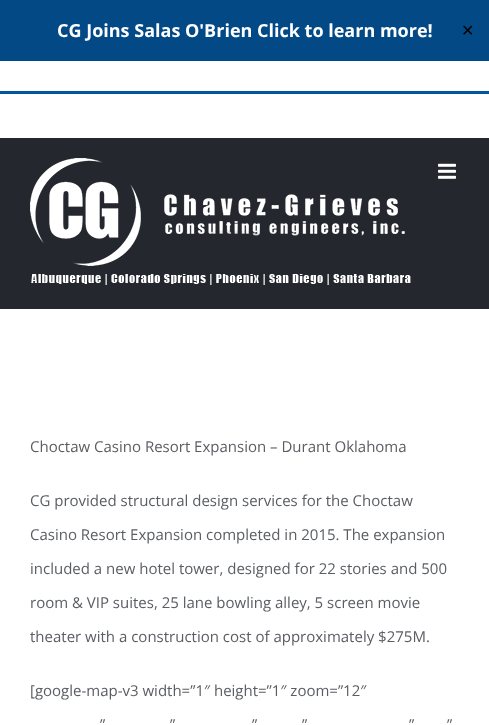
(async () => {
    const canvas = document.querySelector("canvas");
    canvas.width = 489;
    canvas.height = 725;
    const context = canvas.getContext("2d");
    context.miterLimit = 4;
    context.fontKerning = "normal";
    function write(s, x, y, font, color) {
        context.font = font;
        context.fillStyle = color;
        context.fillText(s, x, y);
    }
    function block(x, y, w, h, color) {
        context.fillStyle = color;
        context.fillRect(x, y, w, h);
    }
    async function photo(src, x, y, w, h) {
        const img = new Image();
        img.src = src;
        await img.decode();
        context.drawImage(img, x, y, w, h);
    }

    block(0, 0, 489, 725, "rgb(255, 255, 255)");
    block(0, 0, 489, 61, "rgb(2, 73, 133)");
    write("CG Joins Salas O'Brien Click to learn more!", 57, 37, "bold 18px Open Sans", "rgb(255, 255, 255)");
    write("✕", 461, 36, "16px DejaVu Sans", "rgb(0, 0, 0)");
    block(0, 91, 489, 3, "rgb(0, 86, 163)");
    block(0, 138, 489, 171, "rgb(36, 39, 45)");
    await photo("media/1.png", 30, 158, 381, 127);
    await photo("media/2.png", 438, 163, 18, 16);
    write("Choctaw Casino Resort Expansion – Durant Oklahoma", 30, 452, "15px Open Sans", "rgb(90, 93, 98)");
    write("CG provided structural design services for the Choctaw", 30, 506, "15px Open Sans", "rgb(90, 93, 98)");
    write("Casino Resort Expansion completed in 2015. The expansion", 30, 540, "15px Open Sans", "rgb(90, 93, 98)");
    write("included a new hotel tower, designed for 22 stories and 500", 30, 574, "15px Open Sans", "rgb(90, 93, 98)");
    write("room & VIP suites, 25 lane bowling alley, 5 screen movie", 30, 608, "15px Open Sans", "rgb(90, 93, 98)");
    write("theater with a construction cost of approximately $275M.", 30, 642, "15px Open Sans", "rgb(90, 93, 98)");
    write("[google-map-v3 width=”1″ height=”1″ zoom=”12″", 30, 696, "15px Open Sans", "rgb(90, 93, 98)");
    write("”", 100, 730, "15px Open Sans", "rgb(90, 93, 98)");
    write("”", 170, 730, "15px Open Sans", "rgb(90, 93, 98)");
    write("”", 252, 730, "15px Open Sans", "rgb(90, 93, 98)");
    write("”", 302, 730, "15px Open Sans", "rgb(90, 93, 98)");
    write("”", 409, 730, "15px Open Sans", "rgb(90, 93, 98)");
    write("”", 447, 730, "15px Open Sans", "rgb(90, 93, 98)");
})();
